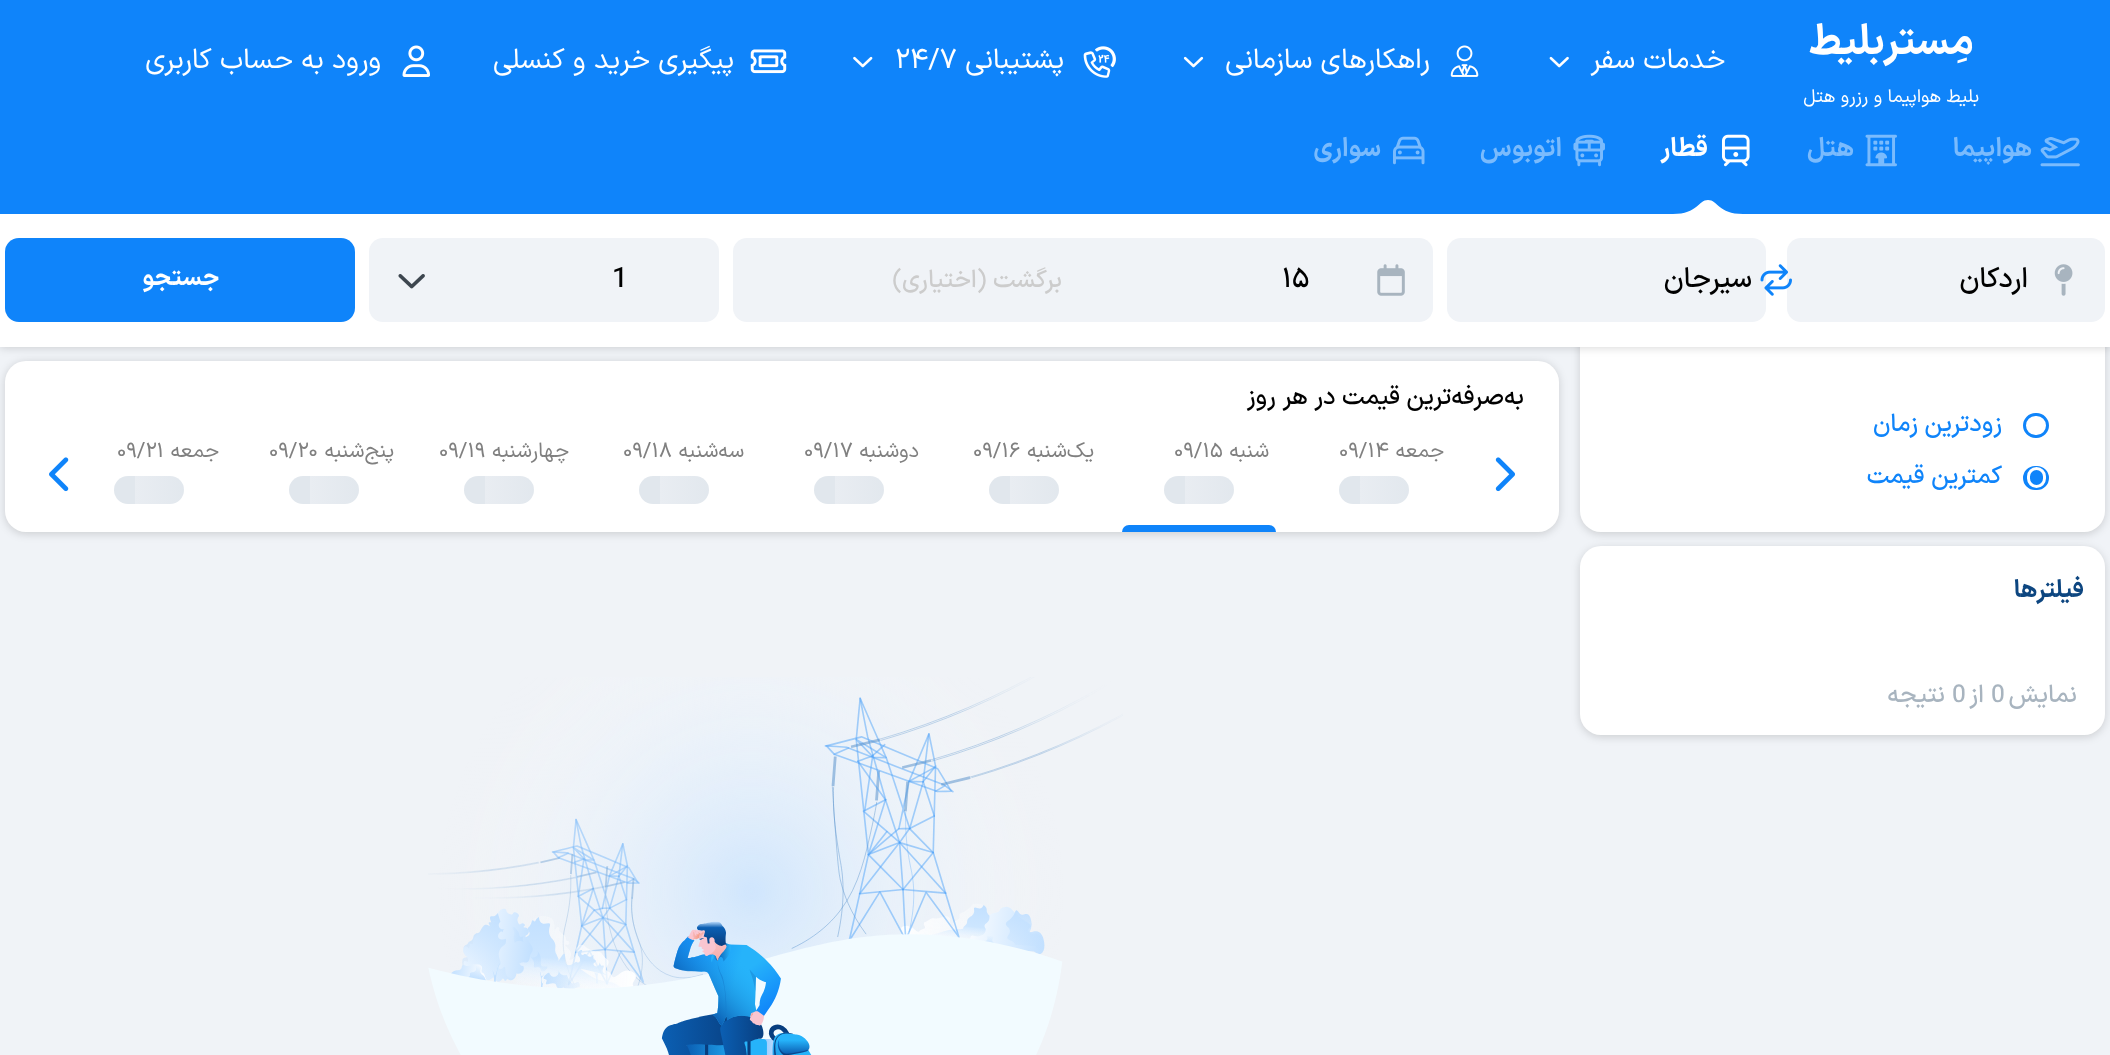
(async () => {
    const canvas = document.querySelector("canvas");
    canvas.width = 2110;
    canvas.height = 1055;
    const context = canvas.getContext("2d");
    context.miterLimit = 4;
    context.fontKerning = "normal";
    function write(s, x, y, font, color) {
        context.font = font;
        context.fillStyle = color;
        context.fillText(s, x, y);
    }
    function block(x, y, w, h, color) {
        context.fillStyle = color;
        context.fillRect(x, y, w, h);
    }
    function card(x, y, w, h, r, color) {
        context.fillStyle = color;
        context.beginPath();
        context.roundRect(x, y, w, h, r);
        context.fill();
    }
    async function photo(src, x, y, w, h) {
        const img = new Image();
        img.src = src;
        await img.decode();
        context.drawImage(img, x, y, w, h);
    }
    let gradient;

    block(0, 0, 2110, 1055, "rgb(240, 243, 247)");
    block(0, 0, 2110, 123, "rgb(15, 132, 250)");
    context.direction = "rtl";
    write("مِستربلیط", 1974, 54, "bold 42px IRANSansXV", "rgb(255, 255, 255)");
    write("بلیط هواپیما و رزرو هتل", 1979, 102, "18.4px IRANSansXV", "rgb(255, 255, 255)");
    write("خدمات سفر", 1725, 68, "28px IRANSansXV", "rgb(255, 255, 255)");
    await photo("media/1.png", 1549, 56, 20, 12);
    await photo("media/2.png", 1450, 45, 29, 32);
    write("راهکارهای سازمانی", 1430, 68, "28px IRANSansXV", "rgb(255, 255, 255)");
    await photo("media/3.png", 1183, 56, 21, 12);
    await photo("media/4.png", 1083, 46, 33, 32);
    write("پشتیبانی", 1064, 68, "28px IRANSansXV", "rgb(255, 255, 255)");
    context.direction = "ltr";
    write("۲۴/۷", 895, 68, "28px IRANSansXV", "rgb(255, 255, 255)");
    await photo("media/5.png", 853, 56, 20, 12);
    await photo("media/6.png", 750, 49, 37, 25);
    context.direction = "rtl";
    write("پیگیری خرید و کنسلی", 734, 68, "28px IRANSansXV", "rgb(255, 255, 255)");
    await photo("media/7.png", 402, 45, 28, 32);
    write("ورود به حساب کاربری", 381, 68, "28px IRANSansXV", "rgb(255, 255, 255)");
    context.fillStyle = "rgba(0, 0, 0, 0.15)";
    context.filter = "blur(4.5px)";
    context.beginPath();
    context.roundRect(1580, 303, 525, 231, 21);
    context.fill();
    context.filter = "none";
    card(1580, 301, 525, 231, 21, "rgb(255, 255, 255)");
    block(0, 214, 2110, 133, "rgb(255, 255, 255)");
    context.fillStyle = "rgba(0, 0, 0, 0.15)";
    context.filter = "blur(4.5px)";
    context.beginPath();
    context.roundRect(5, 362, 1554, 172, 21);
    context.fill();
    context.filter = "none";
    card(5, 361, 1554, 171, 21, "rgb(255, 255, 255)");
    context.save();
    context.beginPath();
    context.moveTo(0, 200);
    context.lineTo(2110, 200);
    context.lineTo(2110, 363);
    context.lineTo(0, 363);
    context.closePath();
    context.moveTo(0, 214);
    context.lineTo(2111, 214);
    context.lineTo(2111, 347);
    context.lineTo(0, 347);
    context.closePath();
    context.clip("evenodd");
    context.fillStyle = "rgba(0, 0, 0, 0.15)";
    context.filter = "blur(4.5px)";
    context.beginPath();
    context.rect(0, 215, 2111, 133);
    context.fill();
    context.filter = "none";
    context.restore();
    block(0, 123, 2110, 91, "rgb(15, 132, 250)");
    await photo("media/8.png", 2040, 137, 40, 30);
    write("هواپیما", 2032, 156, "bold 26px IRANSansXV", "rgb(122, 187, 253)");
    await photo("media/9.png", 1865, 134, 32, 33);
    write("هتل", 1854, 156, "bold 26px IRANSansXV", "rgb(122, 187, 253)");
    await photo("media/10.png", 1722, 134, 28, 33);
    write("قطار", 1708, 156, "bold 26px IRANSansXV", "rgb(255, 255, 255)");
    context.beginPath();
    context.moveTo(1708, 200);
    context.bezierCurveTo(1698, 200, 1698, 214, 1673, 214);
    context.lineTo(1743, 214);
    context.bezierCurveTo(1718, 214, 1718, 200, 1708, 200);
    context.closePath();
    context.fill();
    await photo("media/11.png", 1573, 134, 32, 33);
    write("اتوبوس", 1562, 156, "bold 26px IRANSansXV", "rgb(122, 187, 253)");
    await photo("media/12.png", 1393, 136, 32, 29);
    write("سواری", 1381, 156, "bold 26px IRANSansXV", "rgb(122, 187, 253)");
    block(5, 346, 2100, 1, "rgb(255, 255, 255)");
    card(1787, 238, 318, 84, 14, "rgb(240, 243, 247)");
    await photo("media/13.png", 2054, 264, 19, 32);
    write("اردکان", 2028, 287, "500 28px IRANSansXV", "rgb(0, 0, 0)");
    card(1447, 238, 319, 84, 14, "rgb(240, 243, 247)");
    await photo("media/14.png", 1760, 264, 32, 32);
    write("سیرجان", 1752, 287, "500 28px IRANSansXV", "rgb(0, 0, 0)");
    context.fillStyle = "rgb(240, 243, 247)";
    context.beginPath();
    context.roundRect(1083, 238, 350, 84, [0, 14, 14, 0]);
    context.fill();
    await photo("media/15.png", 1377, 264, 28, 32);
    context.direction = "ltr";
    write("15", 1282, 287, "500 28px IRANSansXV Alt", "rgb(0, 0, 0)");
    context.fillStyle = "rgb(240, 243, 247)";
    context.beginPath();
    context.roundRect(733, 238, 350, 84, [14, 0, 0, 14]);
    context.fill();
    context.direction = "rtl";
    write("برگشت (اختیاری)", 1062, 287, "500 24.5px IRANSansXV", "rgb(204, 204, 204)");
    card(369, 238, 350, 84, 14, "rgb(240, 243, 247)");
    context.direction = "ltr";
    write("1", 612, 287, "500 28px IRANSansXV", "rgb(0, 0, 0)");
    await photo("media/16.png", 398, 274, 27, 15);
    card(5, 238, 350, 84, 14, "rgb(15, 132, 250)");
    context.direction = "rtl";
    write("جستجو", 219, 285, "bold 24.5px IRANSansXV", "rgb(255, 255, 255)");
    context.beginPath();
    context.roundRect(2024.5, 414.5, 23, 22, 11);
    context.strokeStyle = "rgb(15, 132, 250)";
    context.lineWidth = 3;
    context.stroke();
    write("زود‌ترین زمان", 2002, 431, "500 24.5px IRANSansXV", "rgb(15, 132, 250)");
    context.beginPath();
    context.roundRect(2024.5, 467.5, 23, 21, 10.5);
    context.fill();
    context.stroke();
    context.beginPath();
    context.roundRect(2028.5, 468.5, 16, 18, 8);
    context.strokeStyle = "rgb(255, 255, 255)";
    context.stroke();
    write("کمترین قیمت", 2002, 483, "500 24.5px IRANSansXV", "rgb(15, 132, 250)");
    context.fillStyle = "rgba(0, 0, 0, 0.15)";
    context.filter = "blur(4.5px)";
    context.beginPath();
    context.roundRect(1580, 548, 525, 189, 21);
    context.fill();
    context.filter = "none";
    card(1580, 546, 525, 189, 21, "rgb(255, 255, 255)");
    write("فیلترها", 2084, 597, "bold 24.5px IRANSansXV", "rgb(13, 70, 128)");
    write("نمایش", 2077, 702, "500 24.5px IRANSansXV", "rgb(168, 180, 191)");
    context.direction = "ltr";
    write("0", 1991, 702, "500 24.5px IRANSansXV", "rgb(168, 180, 191)");
    context.direction = "rtl";
    write("از", 1984, 702, "500 24.5px IRANSansXV", "rgb(168, 180, 191)");
    context.direction = "ltr";
    write("0", 1952, 702, "500 24.5px IRANSansXV", "rgb(168, 180, 191)");
    context.direction = "rtl";
    write("نتیجه", 1945, 702, "500 24.5px IRANSansXV", "rgb(168, 180, 191)");
    write("به‌صرفه‌ترین قیمت در هر روز", 1524, 404, "500 24.5px IRANSansXV", "rgb(0, 0, 0)");
    write("جمعه", 1444, 457, "21px IRANSansXV", "rgb(128, 128, 128)");
    context.direction = "ltr";
    write("09/14", 1339, 457, "21px IRANSansXV Alt", "rgb(128, 128, 128)");
    gradient = context.createLinearGradient(1339, 490, 1479, 490);
    gradient.addColorStop(0.15, "rgb(225, 231, 237)");
    gradient.addColorStop(0.15, "rgb(233, 237, 242)");
    gradient.addColorStop(0.55, "rgb(225, 231, 237)");
    context.fillStyle = gradient;
    context.beginPath();
    context.roundRect(1339, 476, 70, 28, 14);
    context.fill();
    context.direction = "rtl";
    write("شنبه", 1269, 457, "21px IRANSansXV", "rgb(128, 128, 128)");
    context.direction = "ltr";
    write("09/15", 1174, 457, "21px IRANSansXV Alt", "rgb(128, 128, 128)");
    gradient = context.createLinearGradient(1164, 490, 1304, 490);
    gradient.addColorStop(0.15, "rgb(225, 231, 237)");
    gradient.addColorStop(0.15, "rgb(233, 237, 242)");
    gradient.addColorStop(0.55, "rgb(225, 231, 237)");
    context.fillStyle = gradient;
    context.beginPath();
    context.roundRect(1164, 476, 70, 28, 14);
    context.fill();
    context.fillStyle = "rgb(15, 132, 250)";
    context.beginPath();
    context.roundRect(1122, 525, 154, 7, [7, 7, 0, 0]);
    context.fill();
    context.direction = "rtl";
    write("یک‌شنبه", 1094, 457, "21px IRANSansXV", "rgb(128, 128, 128)");
    context.direction = "ltr";
    write("09/16", 973, 457, "21px IRANSansXV Alt", "rgb(128, 128, 128)");
    gradient = context.createLinearGradient(989, 490, 1129, 490);
    gradient.addColorStop(0.15, "rgb(225, 231, 237)");
    gradient.addColorStop(0.15, "rgb(233, 237, 242)");
    gradient.addColorStop(0.55, "rgb(225, 231, 237)");
    context.fillStyle = gradient;
    context.beginPath();
    context.roundRect(989, 476, 70, 28, 14);
    context.fill();
    context.direction = "rtl";
    write("دوشنبه", 919, 457, "21px IRANSansXV", "rgb(128, 128, 128)");
    context.direction = "ltr";
    write("09/17", 804, 457, "21px IRANSansXV Alt", "rgb(128, 128, 128)");
    gradient = context.createLinearGradient(814, 490, 954, 490);
    gradient.addColorStop(0.15, "rgb(225, 231, 237)");
    gradient.addColorStop(0.15, "rgb(233, 237, 242)");
    gradient.addColorStop(0.55, "rgb(225, 231, 237)");
    context.fillStyle = gradient;
    context.beginPath();
    context.roundRect(814, 476, 70, 28, 14);
    context.fill();
    context.direction = "rtl";
    write("سه‌شنبه", 744, 457, "21px IRANSansXV", "rgb(128, 128, 128)");
    context.direction = "ltr";
    write("09/18", 623, 457, "21px IRANSansXV Alt", "rgb(128, 128, 128)");
    gradient = context.createLinearGradient(639, 490, 779, 490);
    gradient.addColorStop(0.15, "rgb(225, 231, 237)");
    gradient.addColorStop(0.15, "rgb(233, 237, 242)");
    gradient.addColorStop(0.55, "rgb(225, 231, 237)");
    context.fillStyle = gradient;
    context.beginPath();
    context.roundRect(639, 476, 70, 28, 14);
    context.fill();
    context.direction = "rtl";
    write("چهارشنبه", 569, 457, "21px IRANSansXV", "rgb(128, 128, 128)");
    context.direction = "ltr";
    write("09/19", 439, 457, "21px IRANSansXV Alt", "rgb(128, 128, 128)");
    gradient = context.createLinearGradient(464, 490, 604, 490);
    gradient.addColorStop(0.15, "rgb(225, 231, 237)");
    gradient.addColorStop(0.15, "rgb(233, 237, 242)");
    gradient.addColorStop(0.55, "rgb(225, 231, 237)");
    context.fillStyle = gradient;
    context.beginPath();
    context.roundRect(464, 476, 70, 28, 14);
    context.fill();
    context.direction = "rtl";
    write("پنج‌شنبه", 394, 457, "21px IRANSansXV", "rgb(128, 128, 128)");
    context.direction = "ltr";
    write("09/20", 269, 457, "21px IRANSansXV Alt", "rgb(128, 128, 128)");
    gradient = context.createLinearGradient(289, 490, 429, 490);
    gradient.addColorStop(0.15, "rgb(225, 231, 237)");
    gradient.addColorStop(0.15, "rgb(233, 237, 242)");
    gradient.addColorStop(0.55, "rgb(225, 231, 237)");
    context.fillStyle = gradient;
    context.beginPath();
    context.roundRect(289, 476, 70, 28, 14);
    context.fill();
    context.direction = "rtl";
    write("جمعه", 219, 457, "21px IRANSansXV", "rgb(128, 128, 128)");
    context.direction = "ltr";
    write("09/21", 117, 457, "21px IRANSansXV Alt", "rgb(128, 128, 128)");
    gradient = context.createLinearGradient(114, 490, 254, 490);
    gradient.addColorStop(0.15, "rgb(225, 231, 237)");
    gradient.addColorStop(0.15, "rgb(233, 237, 242)");
    gradient.addColorStop(0.55, "rgb(225, 231, 237)");
    context.fillStyle = gradient;
    context.beginPath();
    context.roundRect(114, 476, 70, 28, 14);
    context.fill();
    await photo("media/17.png", 1495, 457, 20, 35);
    await photo("media/18.png", 49, 457, 20, 35);
    await photo("media/19.png", 428, 677, 695, 378);
})();
